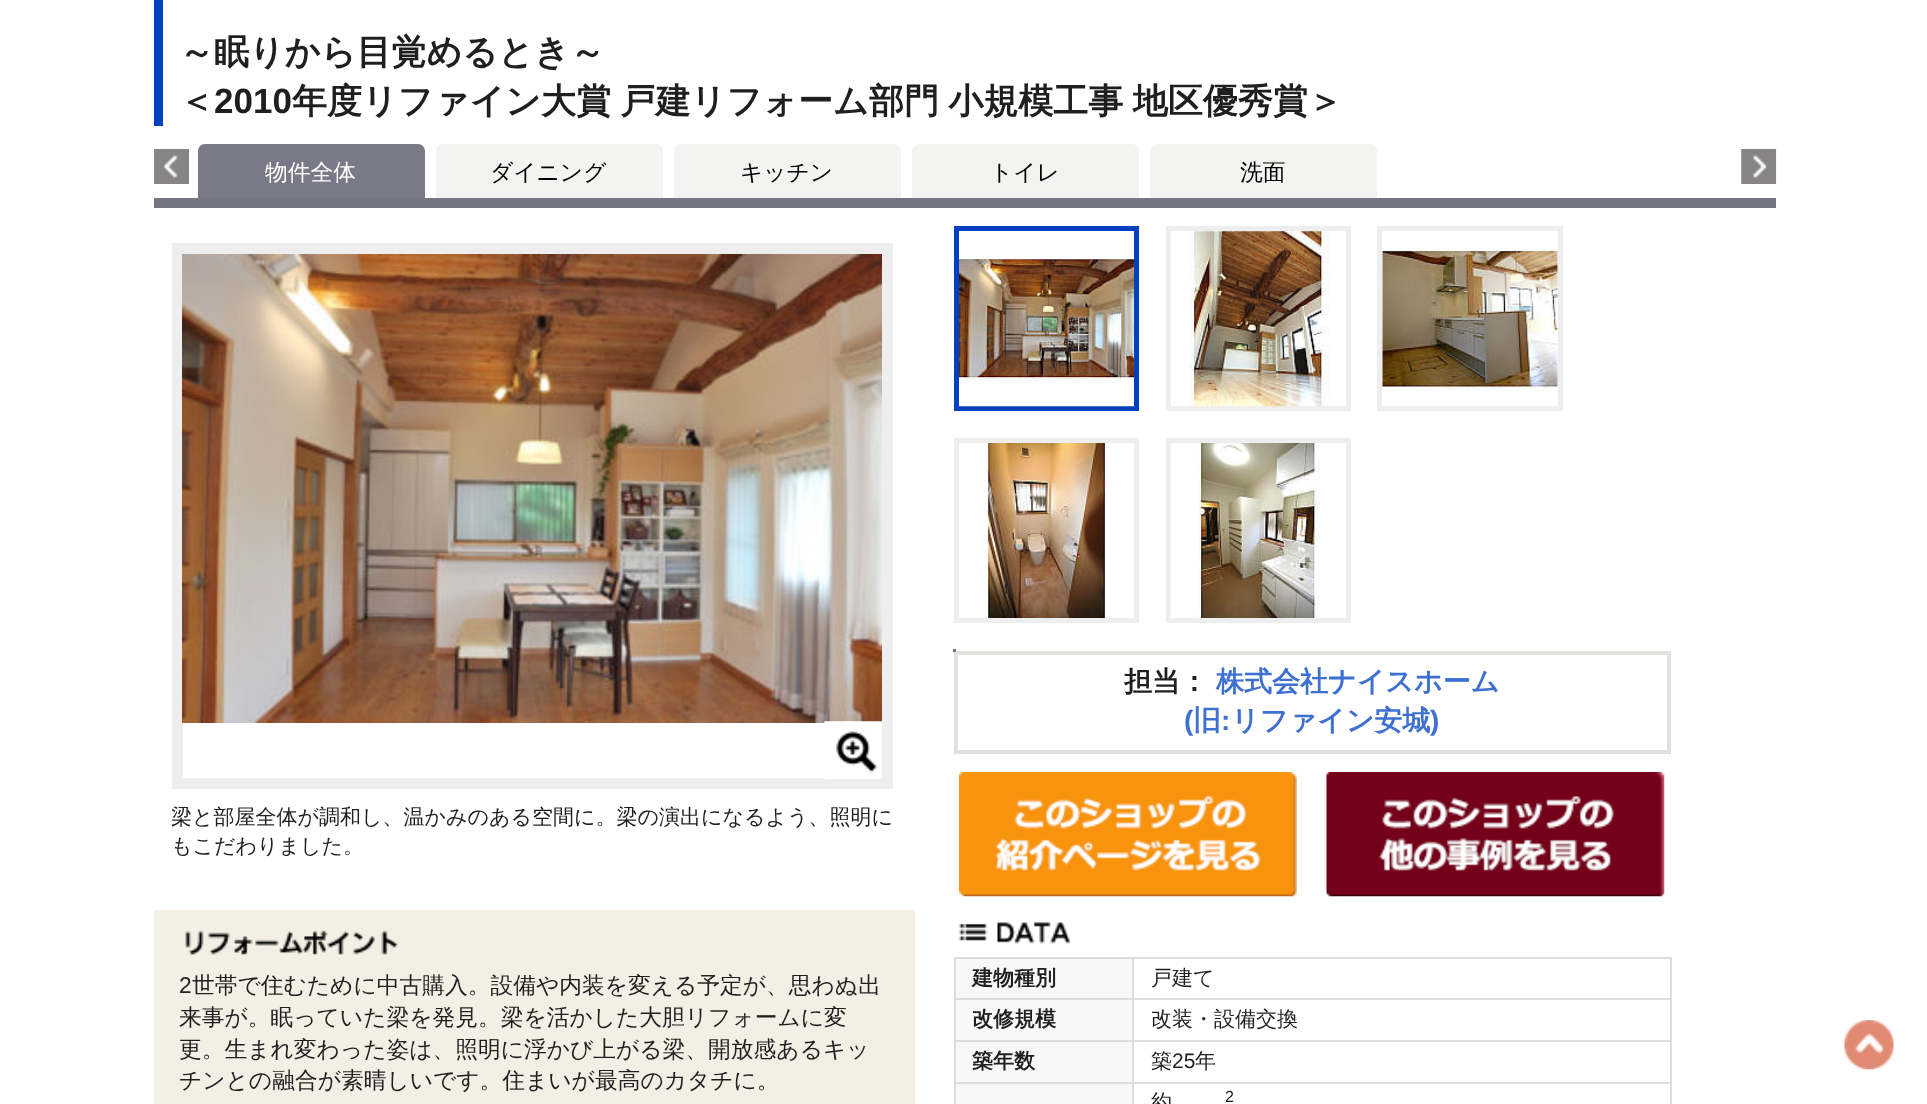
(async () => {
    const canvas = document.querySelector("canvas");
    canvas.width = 1927;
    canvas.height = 1104;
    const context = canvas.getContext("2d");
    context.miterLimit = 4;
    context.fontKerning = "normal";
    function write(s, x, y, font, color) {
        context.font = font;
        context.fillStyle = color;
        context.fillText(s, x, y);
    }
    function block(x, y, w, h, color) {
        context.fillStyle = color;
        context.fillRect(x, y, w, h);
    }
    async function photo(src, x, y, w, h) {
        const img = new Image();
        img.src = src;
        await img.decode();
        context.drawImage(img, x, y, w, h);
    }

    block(0, 0, 1927, 1104, "rgb(255, 255, 255)");
    block(154, 0, 9, 126, "rgb(0, 65, 191)");
    write("～眠りから目覚めるとき～", 179, 64, "bold 35px WenQuanYi Zen Hei", "rgb(31, 31, 31)");
    write("＜", 179, 113, "bold 35px WenQuanYi Zen Hei", "rgb(31, 31, 31)");
    write("2010", 214, 113, "bold 35px Liberation Sans", "rgb(31, 31, 31)");
    context.wordSpacing = "-1px";
    write("年度リファイン大賞 戸建リフォーム部門 小規模工事 地区優秀賞＞", 292, 113, "bold 35px WenQuanYi Zen Hei", "rgb(31, 31, 31)");
    block(154, 198, 1622, 10, "rgb(117, 117, 132)");
    await photo("media/1.png", 154, 149, 35, 35);
    context.fillStyle = "rgb(121, 121, 135)";
    context.beginPath();
    context.roundRect(198, 144, 227, 54, [7, 7, 0, 0]);
    context.fill();
    context.wordSpacing = "0px";
    write("物件全体", 265, 180, "500 22.75px WenQuanYi Zen Hei", "rgb(255, 255, 255)");
    context.fillStyle = "rgb(243, 243, 241)";
    context.beginPath();
    context.roundRect(436, 144, 227, 54, [7, 7, 0, 0]);
    context.fill();
    write("ダイニング", 490, 180, "500 22.75px WenQuanYi Zen Hei", "rgb(0, 0, 0)");
    context.fillStyle = "rgb(243, 243, 241)";
    context.beginPath();
    context.roundRect(674, 144, 227, 54, [7, 7, 0, 0]);
    context.fill();
    write("キッチン", 740, 180, "500 22.75px WenQuanYi Zen Hei", "rgb(0, 0, 0)");
    context.fillStyle = "rgb(243, 243, 241)";
    context.beginPath();
    context.roundRect(912, 144, 227, 54, [7, 7, 0, 0]);
    context.fill();
    write("トイレ", 990, 180, "500 22.75px WenQuanYi Zen Hei", "rgb(0, 0, 0)");
    context.fillStyle = "rgb(243, 243, 241)";
    context.beginPath();
    context.roundRect(1150, 144, 227, 54, [7, 7, 0, 0]);
    context.fill();
    write("洗面", 1240, 180, "500 22.75px WenQuanYi Zen Hei", "rgb(0, 0, 0)");
    await photo("media/2.png", 1741, 149, 36, 35);
    context.strokeStyle = "rgb(238, 238, 238)";
    context.lineWidth = 11;
    context.strokeRect(177.5, 248.5, 710, 535);
    await photo("media/3.png", 182, 254, 700, 469);
    await photo("media/4.png", 824, 721, 58, 58);
    write("梁と部屋全体が調和し、温かみのある空間に。梁の演出になるよう、照明に", 171, 824, "500 21px WenQuanYi Zen Hei", "rgb(31, 31, 31)");
    write("もこだわりました。", 171, 853, "500 21px WenQuanYi Zen Hei", "rgb(31, 31, 31)");
    block(154, 910, 761, 194, "rgb(243, 239, 229)");
    await photo("media/5.png", 185, 930, 213, 25);
    write("2", 179, 993, "22.75px Liberation Sans", "rgb(31, 31, 31)");
    write("世帯で住むために中古購入。設備や内装を変える予定が、思わぬ出", 192, 993, "500 22.75px WenQuanYi Zen Hei", "rgb(31, 31, 31)");
    write("来事が。眠っていた梁を発見。梁を活かした大胆リフォームに変", 179, 1025, "500 22.75px WenQuanYi Zen Hei", "rgb(31, 31, 31)");
    write("更。生まれ変わった姿は、照明に浮かび上がる梁、開放感あるキッ", 179, 1057, "500 22.75px WenQuanYi Zen Hei", "rgb(31, 31, 31)");
    write("チンとの融合が素晴しいです。住まいが最高のカタチに。", 179, 1088, "500 22.75px WenQuanYi Zen Hei", "rgb(31, 31, 31)");
    context.strokeStyle = "rgb(1, 64, 193)";
    context.lineWidth = 5;
    context.strokeRect(956.5, 228.5, 180, 180);
    await photo("media/6.png", 959, 259, 175, 148);
    context.strokeStyle = "rgb(238, 238, 238)";
    context.strokeRect(1168.5, 228.5, 180, 180);
    await photo("media/7.png", 1170, 231, 175, 176);
    context.strokeRect(1379.5, 228.5, 181, 180);
    await photo("media/8.png", 1382, 249, 176, 158);
    context.strokeRect(956.5, 440.5, 180, 180);
    await photo("media/9.png", 987, 443, 122, 175);
    context.strokeRect(1168.5, 440.5, 180, 180);
    await photo("media/10.png", 1170, 443, 150, 175);
    context.strokeStyle = "rgb(225, 225, 221)";
    context.lineWidth = 4;
    context.strokeRect(956, 653, 713, 99);
    block(953, 649, 3, 3, "rgb(119, 119, 119)");
    write("担当：", 1124, 691, "bold 28px WenQuanYi Zen Hei", "rgb(31, 31, 31)");
    write("株式会社ナイスホーム", 1216, 691, "bold 28px WenQuanYi Zen Hei", "rgb(62, 112, 209)");
    write("(", 1184, 730, "bold 28px Liberation Sans", "rgb(62, 112, 209)");
    write("旧", 1193, 730, "bold 28px WenQuanYi Zen Hei", "rgb(62, 112, 209)");
    write(":", 1221, 730, "bold 28px Liberation Sans", "rgb(62, 112, 209)");
    write("リファイン安城", 1231, 730, "bold 28px WenQuanYi Zen Hei", "rgb(62, 112, 209)");
    write(")", 1430, 730, "bold 28px Liberation Sans", "rgb(62, 112, 209)");
    await photo("media/11.png", 959, 772, 338, 125);
    await photo("media/12.png", 1326, 772, 339, 125);
    await photo("media/13.png", 958, 922, 113, 22);
    block(956, 959, 176, 39, "rgb(248, 248, 248)");
    block(1132, 957, 539, 2, "rgb(221, 221, 221)");
    block(1132, 998, 539, 2, "rgb(221, 221, 221)");
    block(1132, 1040, 539, 2, "rgb(221, 221, 221)");
    block(1132, 1082, 539, 2, "rgb(221, 221, 221)");
    block(1132, 1082, 2, 22, "rgb(221, 221, 221)");
    block(954, 1082, 180, 2, "rgb(221, 221, 221)");
    block(1132, 1040, 2, 43, "rgb(221, 221, 221)");
    block(954, 1040, 180, 2, "rgb(221, 221, 221)");
    block(1132, 998, 2, 43, "rgb(221, 221, 221)");
    block(954, 998, 180, 2, "rgb(221, 221, 221)");
    block(1132, 957, 2, 42, "rgb(221, 221, 221)");
    block(954, 957, 180, 2, "rgb(221, 221, 221)");
    block(954, 1082, 2, 22, "rgb(221, 221, 221)");
    block(954, 1040, 2, 43, "rgb(221, 221, 221)");
    block(954, 998, 2, 43, "rgb(221, 221, 221)");
    block(954, 957, 2, 42, "rgb(221, 221, 221)");
    write("建物種別", 972, 985, "bold 21px WenQuanYi Zen Hei", "rgb(31, 31, 31)");
    block(1670, 1082, 2, 22, "rgb(221, 221, 221)");
    block(1670, 1040, 2, 43, "rgb(221, 221, 221)");
    block(1670, 998, 2, 43, "rgb(221, 221, 221)");
    block(1670, 957, 2, 42, "rgb(221, 221, 221)");
    write("戸建て", 1151, 985, "500 21px WenQuanYi Zen Hei", "rgb(31, 31, 31)");
    block(956, 1000, 176, 40, "rgb(248, 248, 248)");
    write("改修規模", 972, 1026, "bold 21px WenQuanYi Zen Hei", "rgb(31, 31, 31)");
    write("改装・設備交換", 1151, 1026, "500 21px WenQuanYi Zen Hei", "rgb(31, 31, 31)");
    block(956, 1042, 176, 40, "rgb(248, 248, 248)");
    write("築年数", 972, 1068, "bold 21px WenQuanYi Zen Hei", "rgb(31, 31, 31)");
    write("築", 1151, 1068, "500 21px WenQuanYi Zen Hei", "rgb(31, 31, 31)");
    write("25", 1172, 1068, "21px Liberation Sans", "rgb(31, 31, 31)");
    write("年", 1195, 1068, "500 21px WenQuanYi Zen Hei", "rgb(31, 31, 31)");
    block(956, 1084, 176, 20, "rgb(248, 248, 248)");
    write("約", 1151, 1109, "500 21px WenQuanYi Zen Hei", "rgb(31, 31, 31)");
    write("2", 1225, 1102, "16px Liberation Sans", "rgb(31, 31, 31)");
    await photo("media/14.png", 1844, 1020, 50, 50);
})();
